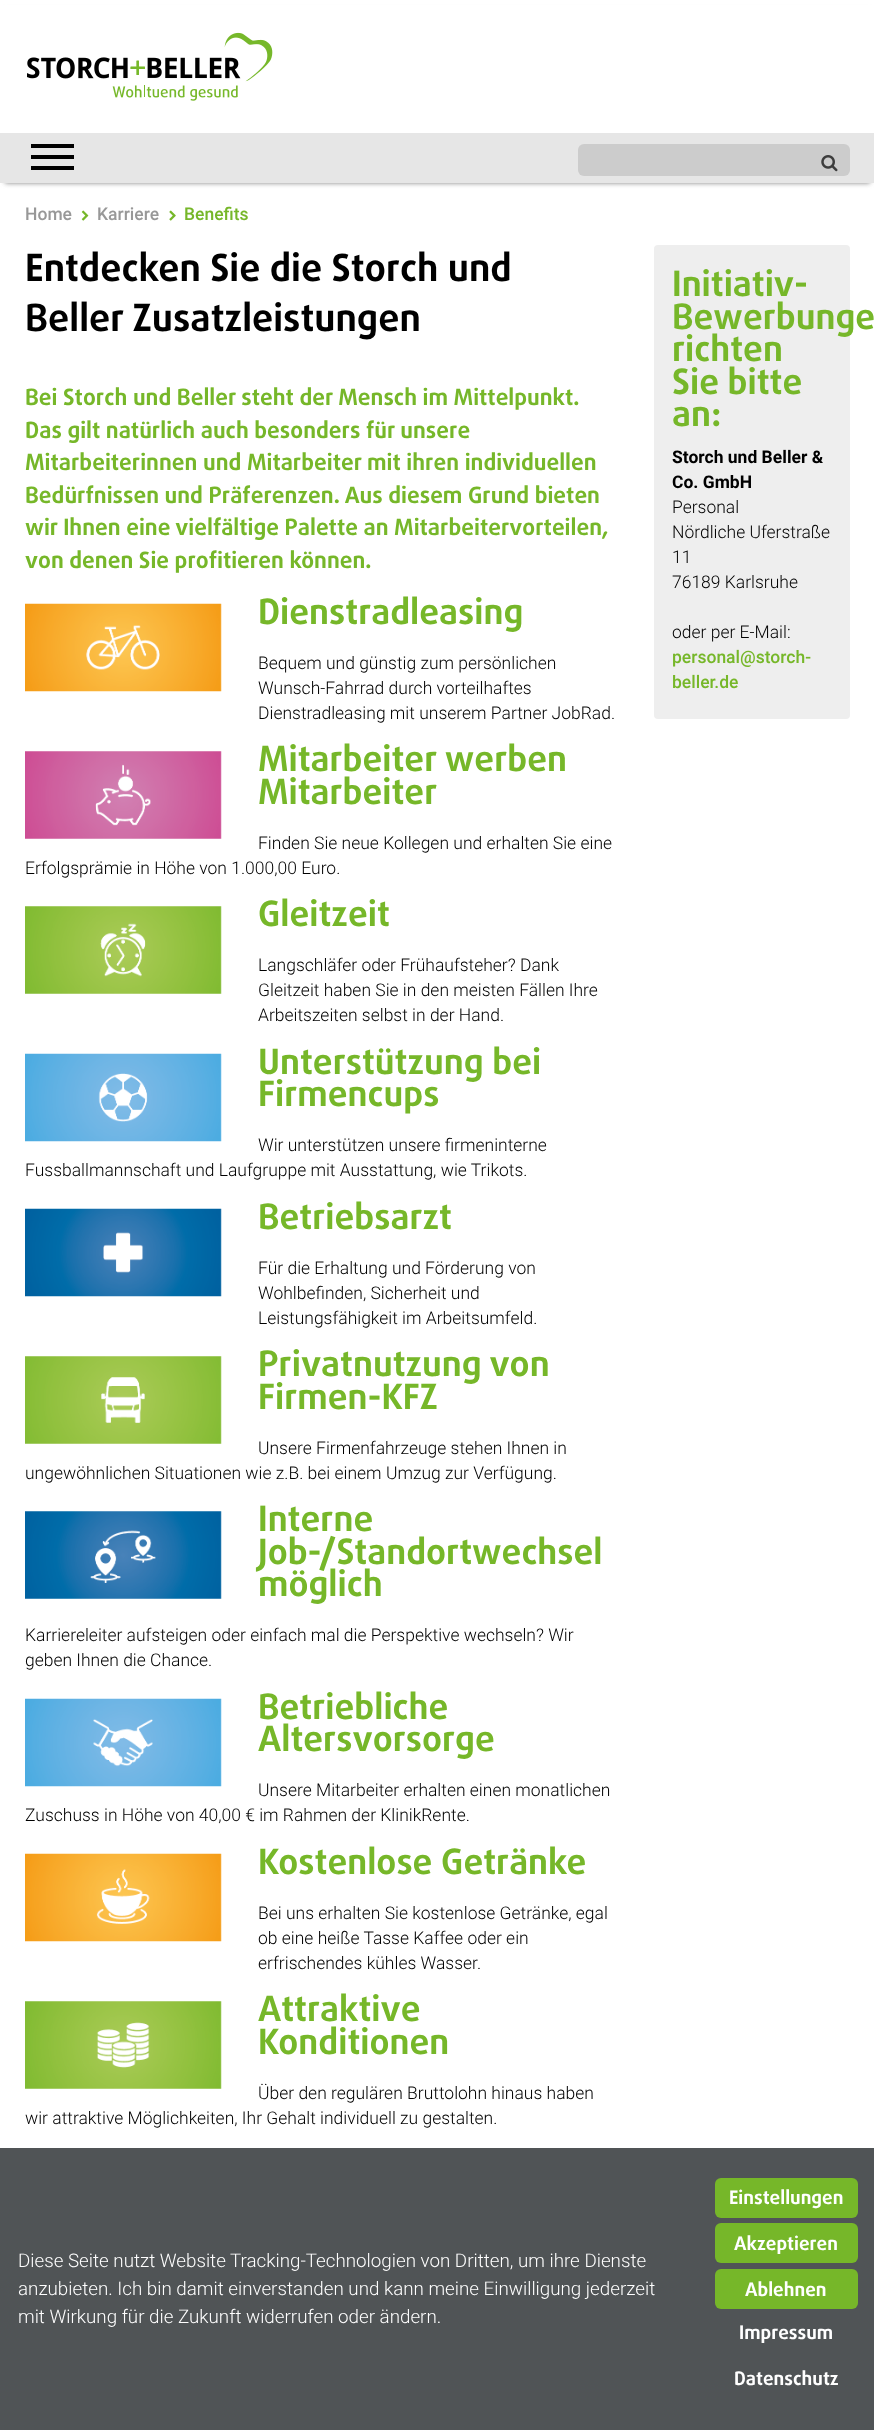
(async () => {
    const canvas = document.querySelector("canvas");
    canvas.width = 874;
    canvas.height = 2430;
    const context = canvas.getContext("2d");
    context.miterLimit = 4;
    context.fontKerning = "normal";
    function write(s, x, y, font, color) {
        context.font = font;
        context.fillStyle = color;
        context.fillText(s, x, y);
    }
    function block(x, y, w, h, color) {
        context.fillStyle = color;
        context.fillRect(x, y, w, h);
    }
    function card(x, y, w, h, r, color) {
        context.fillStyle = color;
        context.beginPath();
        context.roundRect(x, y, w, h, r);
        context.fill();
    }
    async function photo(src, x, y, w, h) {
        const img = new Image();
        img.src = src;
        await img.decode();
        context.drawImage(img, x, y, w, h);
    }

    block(0, 0, 874, 2430, "rgb(255, 255, 255)");
    context.fillStyle = "rgb(128, 128, 128)";
    context.filter = "blur(2.5px)";
    context.beginPath();
    context.rect(5, 10, 865, 173);
    context.fill();
    context.filter = "none";
    block(0, 5, 874, 128, "rgb(255, 255, 255)");
    await photo("media/1.png", 27, 32, 246, 69);
    block(0, 133, 874, 50, "rgb(230, 230, 230)");
    block(31, 144, 43, 4, "rgb(0, 0, 0)");
    block(31, 155, 43, 4, "rgb(0, 0, 0)");
    block(31, 166, 43, 4, "rgb(0, 0, 0)");
    card(578, 144, 272, 32, 6, "rgb(204, 204, 204)");
    await photo("media/2.png", 821, 155, 17, 17);
    write("Home", 25, 220, "500 17.5px Roboto", "rgb(152, 152, 152)");
    await photo("media/3.png", 81, 210, 8, 11);
    write("Karriere", 97, 220, "500 17.5px Roboto", "rgb(152, 152, 152)");
    await photo("media/4.png", 169, 210, 7, 11);
    write("Benefits", 184, 220, "500 17.5px Roboto", "rgb(118, 183, 41)");
    write("Entdecken Sie die Storch und", 25, 281, "bold 37.5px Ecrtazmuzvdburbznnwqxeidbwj", "rgb(0, 0, 0)");
    write("Beller Zusatzleistungen", 25, 331, "bold 37.5px Ecrtazmuzvdburbznnwqxeidbwj", "rgb(0, 0, 0)");
    write("Bei Storch und Beller steht der Mensch im Mittelpunkt.", 25, 405, "bold 22.5px Ecrtazmuzvdburbznnwqxeidbwj", "rgb(118, 183, 41)");
    write("Das gilt natürlich auch besonders für unsere", 25, 438, "bold 22.5px Ecrtazmuzvdburbznnwqxeidbwj", "rgb(118, 183, 41)");
    write("Mitarbeiterinnen und Mitarbeiter mit ihren individuellen", 25, 470, "bold 22.5px Ecrtazmuzvdburbznnwqxeidbwj", "rgb(118, 183, 41)");
    write("Bedürfnissen und Präferenzen. Aus diesem Grund bieten", 25, 503, "bold 22.5px Ecrtazmuzvdburbznnwqxeidbwj", "rgb(118, 183, 41)");
    write("wir Ihnen eine vielfältige Palette an Mitarbeitervorteilen,", 25, 535, "bold 22.5px Ecrtazmuzvdburbznnwqxeidbwj", "rgb(118, 183, 41)");
    write("von denen Sie profitieren können.", 25, 568, "bold 22.5px Ecrtazmuzvdburbznnwqxeidbwj", "rgb(118, 183, 41)");
    await photo("media/5.png", 25, 603, 197, 89);
    write("Dienstradleasing", 258, 624, "bold 35px Ecrtazmuzvdburbznnwqxeidbwj", "rgb(118, 183, 41)");
    write("Bequem und günstig zum persönlichen", 258, 669, "300 17.5px Roboto", "rgb(0, 0, 0)");
    write("Wunsch-Fahrrad durch vorteilhaftes", 258, 694, "300 17.5px Roboto", "rgb(0, 0, 0)");
    write("Dienstradleasing mit unserem Partner JobRad.", 258, 719, "300 17.5px Roboto", "rgb(0, 0, 0)");
    await photo("media/6.png", 25, 751, 197, 88);
    write("Mitarbeiter werben", 258, 771, "bold 35px Ecrtazmuzvdburbznnwqxeidbwj", "rgb(118, 183, 41)");
    write("Mitarbeiter", 258, 804, "bold 35px Ecrtazmuzvdburbznnwqxeidbwj", "rgb(118, 183, 41)");
    write("Finden Sie neue Kollegen und erhalten Sie eine", 258, 849, "300 17.5px Roboto", "rgb(0, 0, 0)");
    write("Erfolgsprämie in Höhe von 1.000,00 Euro.", 25, 874, "300 17.5px Roboto", "rgb(0, 0, 0)");
    await photo("media/7.png", 25, 906, 197, 88);
    write("Gleitzeit", 258, 926, "bold 35px Ecrtazmuzvdburbznnwqxeidbwj", "rgb(118, 183, 41)");
    write("Langschläfer oder Frühaufsteher? Dank", 258, 971, "300 17.5px Roboto", "rgb(0, 0, 0)");
    write("Gleitzeit haben Sie in den meisten Fällen Ihre", 258, 996, "300 17.5px Roboto", "rgb(0, 0, 0)");
    write("Arbeitszeiten selbst in der Hand.", 258, 1021, "300 17.5px Roboto", "rgb(0, 0, 0)");
    await photo("media/8.png", 25, 1053, 197, 89);
    write("Unterstützung bei", 258, 1074, "bold 35px Ecrtazmuzvdburbznnwqxeidbwj", "rgb(118, 183, 41)");
    write("Firmencups", 258, 1106, "bold 35px Ecrtazmuzvdburbznnwqxeidbwj", "rgb(118, 183, 41)");
    write("Wir unterstützen unsere firmeninterne", 258, 1151, "300 17.5px Roboto", "rgb(0, 0, 0)");
    write("Fussballmannschaft und Laufgruppe mit Ausstattung, wie Trikots.", 25, 1176, "300 17.5px Roboto", "rgb(0, 0, 0)");
    await photo("media/9.png", 25, 1208, 197, 89);
    write("Betriebsarzt", 258, 1229, "bold 35px Ecrtazmuzvdburbznnwqxeidbwj", "rgb(118, 183, 41)");
    write("Für die Erhaltung und Förderung von", 258, 1274, "300 17.5px Roboto", "rgb(0, 0, 0)");
    write("Wohlbefinden, Sicherheit und", 258, 1299, "300 17.5px Roboto", "rgb(0, 0, 0)");
    write("Leistungsfähigkeit im Arbeitsumfeld.", 258, 1324, "300 17.5px Roboto", "rgb(0, 0, 0)");
    await photo("media/10.png", 25, 1356, 197, 88);
    write("Privatnutzung von", 258, 1376, "bold 35px Ecrtazmuzvdburbznnwqxeidbwj", "rgb(118, 183, 41)");
    write("Firmen-KFZ", 258, 1409, "bold 35px Ecrtazmuzvdburbznnwqxeidbwj", "rgb(118, 183, 41)");
    write("Unsere Firmenfahrzeuge stehen Ihnen in", 258, 1454, "300 17.5px Roboto", "rgb(0, 0, 0)");
    write("ungewöhnlichen Situationen wie z.B. bei einem Umzug zur Verfügung.", 25, 1479, "300 17.5px Roboto", "rgb(0, 0, 0)");
    await photo("media/11.png", 25, 1511, 197, 88);
    write("Interne", 258, 1531, "bold 35px Ecrtazmuzvdburbznnwqxeidbwj", "rgb(118, 183, 41)");
    write("Job-/Standortwechsel", 258, 1564, "bold 35px Ecrtazmuzvdburbznnwqxeidbwj", "rgb(118, 183, 41)");
    write("möglich", 258, 1596, "bold 35px Ecrtazmuzvdburbznnwqxeidbwj", "rgb(118, 183, 41)");
    write("Karriereleiter aufsteigen oder einfach mal die Perspektive wechseln? Wir", 25, 1641, "300 17.5px Roboto", "rgb(0, 0, 0)");
    write("geben Ihnen die Chance.", 25, 1666, "300 17.5px Roboto", "rgb(0, 0, 0)");
    await photo("media/12.png", 25, 1698, 197, 89);
    write("Betriebliche", 258, 1719, "bold 35px Ecrtazmuzvdburbznnwqxeidbwj", "rgb(118, 183, 41)");
    write("Altersvorsorge", 258, 1751, "bold 35px Ecrtazmuzvdburbznnwqxeidbwj", "rgb(118, 183, 41)");
    write("Unsere Mitarbeiter erhalten einen monatlichen", 258, 1796, "300 17.5px Roboto", "rgb(0, 0, 0)");
    write("Zuschuss in Höhe von 40,00 € im Rahmen der KlinikRente.", 25, 1821, "300 17.5px Roboto", "rgb(0, 0, 0)");
    await photo("media/13.png", 25, 1853, 197, 89);
    write("Kostenlose Getränke", 258, 1874, "bold 35px Ecrtazmuzvdburbznnwqxeidbwj", "rgb(118, 183, 41)");
    write("Bei uns erhalten Sie kostenlose Getränke, egal", 258, 1919, "300 17.5px Roboto", "rgb(0, 0, 0)");
    write("ob eine heiße Tasse Kaffee oder ein", 258, 1944, "300 17.5px Roboto", "rgb(0, 0, 0)");
    write("erfrischendes kühles Wasser.", 258, 1969, "300 17.5px Roboto", "rgb(0, 0, 0)");
    await photo("media/14.png", 25, 2001, 197, 88);
    write("Attraktive", 258, 2021, "bold 35px Ecrtazmuzvdburbznnwqxeidbwj", "rgb(118, 183, 41)");
    write("Konditionen", 258, 2054, "bold 35px Ecrtazmuzvdburbznnwqxeidbwj", "rgb(118, 183, 41)");
    write("Über den regulären Bruttolohn hinaus haben", 258, 2099, "300 17.5px Roboto", "rgb(0, 0, 0)");
    write("wir attraktive Möglichkeiten, Ihr Gehalt individuell zu gestalten.", 25, 2124, "300 17.5px Roboto", "rgb(0, 0, 0)");
    card(654, 245, 196, 474, 4, "rgb(238, 238, 238)");
    write("Initiativ-", 672, 296, "bold 35px Ecrtazmuzvdburbznnwqxeidbwj", "rgb(118, 183, 41)");
    write("Bewerbunge", 672, 329, "bold 35px Ecrtazmuzvdburbznnwqxeidbwj", "rgb(118, 183, 41)");
    write("richten", 672, 361, "bold 35px Ecrtazmuzvdburbznnwqxeidbwj", "rgb(118, 183, 41)");
    write("Sie bitte", 672, 394, "bold 35px Ecrtazmuzvdburbznnwqxeidbwj", "rgb(118, 183, 41)");
    write("an:", 672, 426, "bold 35px Ecrtazmuzvdburbznnwqxeidbwj", "rgb(118, 183, 41)");
    write("Storch und Beller &", 672, 463, "bold 17.5px Roboto", "rgb(0, 0, 0)");
    write("Co. GmbH", 672, 488, "bold 17.5px Roboto", "rgb(0, 0, 0)");
    write("Personal", 672, 513, "300 17.5px Roboto", "rgb(0, 0, 0)");
    write("Nördliche Uferstraße", 672, 538, "300 17.5px Roboto", "rgb(0, 0, 0)");
    write("11", 672, 563, "300 17.5px Roboto", "rgb(0, 0, 0)");
    write("76189 Karlsruhe", 672, 588, "300 17.5px Roboto", "rgb(0, 0, 0)");
    write("oder per E-Mail:", 672, 638, "300 17.5px Roboto", "rgb(0, 0, 0)");
    write("personal@storch-", 672, 663, "500 17.5px Roboto", "rgb(118, 183, 41)");
    write("beller.de", 672, 688, "500 17.5px Roboto", "rgb(118, 183, 41)");
    block(0, 2148, 874, 282, "rgb(80, 84, 86)");
    write("Diese Seite nutzt Website Tracking-Technologien von Dritten, um ihre Dienste", 18, 2267, "300 18.8px Roboto", "rgb(255, 255, 255)");
    write("anzubieten. Ich bin damit einverstanden und kann meine Einwilligung jederzeit", 18, 2295, "300 18.8px Roboto", "rgb(255, 255, 255)");
    write("mit Wirkung für die Zukunft widerrufen oder ändern.", 18, 2323, "300 18.8px Roboto", "rgb(255, 255, 255)");
    card(715, 2178, 143, 40, 6, "rgb(118, 183, 41)");
    write("Einstellungen", 729, 2204, "bold 18.8px Ecrtazmuzvdburbznnwqxeidbwj", "rgb(255, 255, 255)");
    card(715, 2223, 143, 40, 6, "rgb(118, 183, 41)");
    write("Akzeptieren", 734, 2250, "bold 18.8px Ecrtazmuzvdburbznnwqxeidbwj", "rgb(255, 255, 255)");
    card(715, 2269, 143, 40, 6, "rgb(118, 183, 41)");
    write("Ablehnen", 745, 2296, "bold 18.8px Ecrtazmuzvdburbznnwqxeidbwj", "rgb(255, 255, 255)");
    write("Impressum", 739, 2339, "bold 18.8px Ecrtazmuzvdburbznnwqxeidbwj", "rgb(255, 255, 255)");
    write("Datenschutz", 734, 2385, "bold 18.8px Ecrtazmuzvdburbznnwqxeidbwj", "rgb(255, 255, 255)");
})();
